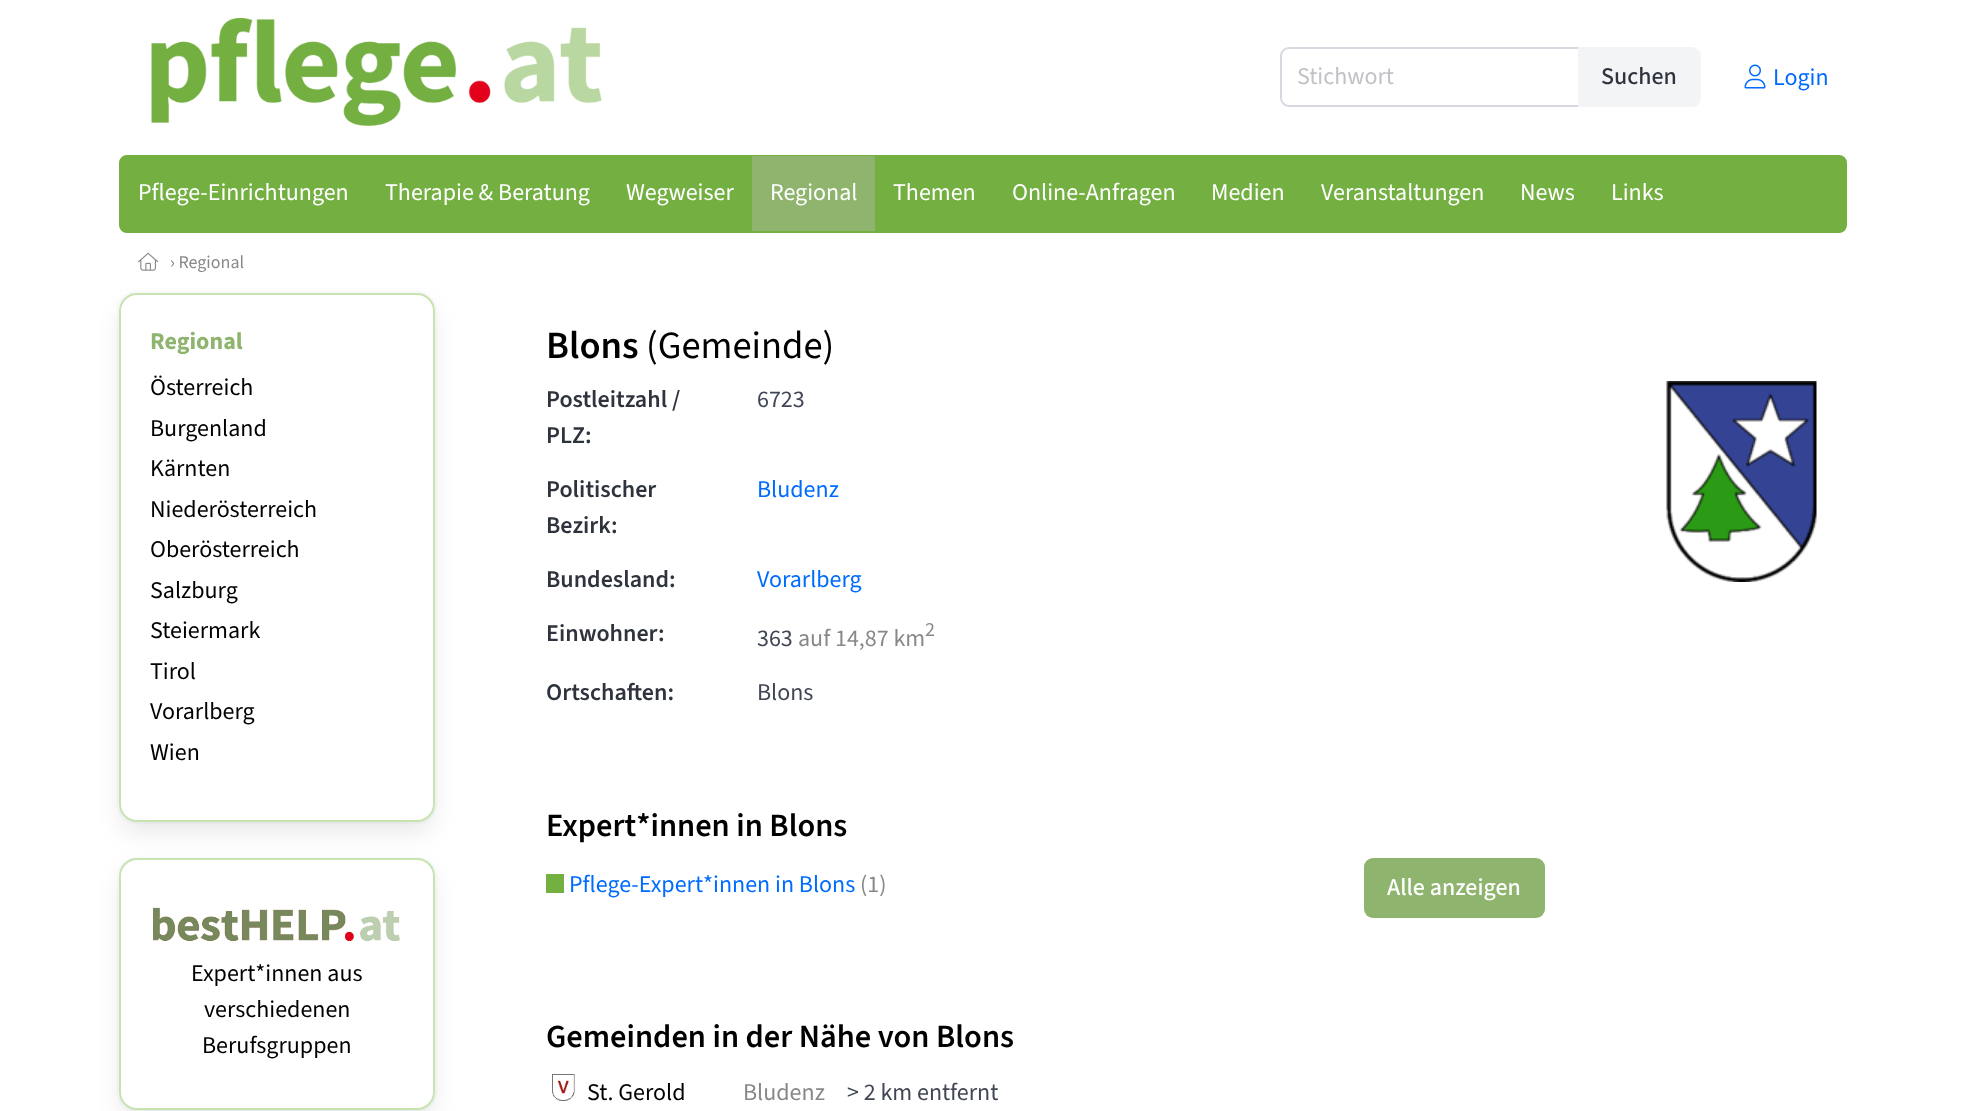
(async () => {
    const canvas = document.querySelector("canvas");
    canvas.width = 1964;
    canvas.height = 1111;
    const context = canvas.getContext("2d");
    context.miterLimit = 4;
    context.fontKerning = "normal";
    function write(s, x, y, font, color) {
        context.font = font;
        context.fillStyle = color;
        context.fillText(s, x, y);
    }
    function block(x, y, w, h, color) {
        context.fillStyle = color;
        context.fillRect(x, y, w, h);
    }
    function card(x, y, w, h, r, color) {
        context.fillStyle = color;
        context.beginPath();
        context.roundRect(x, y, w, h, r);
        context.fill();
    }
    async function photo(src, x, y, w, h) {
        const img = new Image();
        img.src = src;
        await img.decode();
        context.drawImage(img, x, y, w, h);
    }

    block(0, 0, 1964, 1111, "rgb(255, 255, 255)");
    await photo("media/1.png", 151, 18, 451, 108);
    context.beginPath();
    context.roundRect(1281, 48, 298, 58, [8, 0, 0, 8]);
    context.strokeStyle = "rgb(214, 217, 224)";
    context.lineWidth = 2;
    context.stroke();
    write("Stichwort", 1297, 84, "24px 'Source Sans 3'", "rgb(192, 194, 197)");
    context.fillStyle = "rgb(243, 244, 246)";
    context.beginPath();
    context.roundRect(1578, 47, 123, 60, [0, 9, 9, 0]);
    context.fill();
    write("Suchen", 1601, 84, "500 24px 'Source Sans 3'", "rgb(46, 51, 61)");
    await photo("media/2.png", 1744, 64, 22, 25);
    write("Login", 1773, 85, "24px 'Source Sans 3'", "rgb(0, 108, 255)");
    context.fillStyle = "rgb(116, 175, 66)";
    context.beginPath();
    context.roundRect(120, 156, 1726, 76, 7);
    context.fill();
    context.strokeStyle = "rgb(116, 175, 66)";
    context.stroke();
    write("Pflege-Einrichtungen", 138, 200, "24px 'Source Sans 3'", "rgb(255, 255, 255)");
    write("Therapie & Beratung", 385, 200, "24px 'Source Sans 3'", "rgb(255, 255, 255)");
    write("Wegweiser", 626, 200, "24px 'Source Sans 3'", "rgb(255, 255, 255)");
    block(752, 156, 123, 75, "rgb(142, 180, 110)");
    write("Regional", 770, 200, "24px 'Source Sans 3'", "rgb(255, 255, 255)");
    write("Themen", 893, 200, "24px 'Source Sans 3'", "rgb(255, 255, 255)");
    write("Online-Anfragen", 1012, 200, "24px 'Source Sans 3'", "rgb(255, 255, 255)");
    write("Medien", 1211, 200, "24px 'Source Sans 3'", "rgb(255, 255, 255)");
    write("Veranstaltungen", 1321, 200, "24px 'Source Sans 3'", "rgb(255, 255, 255)");
    write("News", 1520, 200, "24px 'Source Sans 3'", "rgb(255, 255, 255)");
    write("Links", 1611, 200, "24px 'Source Sans 3'", "rgb(255, 255, 255)");
    await photo("media/3.png", 138, 252, 21, 19);
    write("› Regional", 170, 268, "18px 'Source Sans 3'", "rgb(136, 136, 136)");
    context.beginPath();
    context.roundRect(118, 292, 318, 531, 19);
    context.strokeStyle = "rgb(250, 250, 250)";
    context.stroke();
    context.fillStyle = "rgba(9, 10, 12, 0.1)";
    context.filter = "blur(12px)";
    context.beginPath();
    context.roundRect(122, 308, 310, 523, 15);
    context.fill();
    context.filter = "none";
    context.fillStyle = "rgb(255, 255, 255)";
    context.beginPath();
    context.roundRect(120, 294, 314, 527, 17);
    context.fill();
    context.strokeStyle = "rgb(200, 227, 178)";
    context.stroke();
    write("Regional", 150, 349, "bold 24px 'Source Sans 3'", "rgb(142, 180, 110)");
    write("Österreich", 150, 395, "24px 'Source Sans 3'", "rgb(0, 0, 0)");
    write("Burgenland", 150, 436, "24px 'Source Sans 3'", "rgb(0, 0, 0)");
    write("Kärnten", 150, 476, "24px 'Source Sans 3'", "rgb(0, 0, 0)");
    write("Niederösterreich", 150, 517, "24px 'Source Sans 3'", "rgb(0, 0, 0)");
    write("Oberösterreich", 150, 557, "24px 'Source Sans 3'", "rgb(0, 0, 0)");
    write("Salzburg", 150, 598, "24px 'Source Sans 3'", "rgb(0, 0, 0)");
    write("Steiermark", 150, 638, "24px 'Source Sans 3'", "rgb(0, 0, 0)");
    write("Tirol", 150, 679, "24px 'Source Sans 3'", "rgb(0, 0, 0)");
    write("Vorarlberg", 150, 719, "24px 'Source Sans 3'", "rgb(0, 0, 0)");
    write("Wien", 150, 760, "24px 'Source Sans 3'", "rgb(0, 0, 0)");
    context.beginPath();
    context.roundRect(118, 858, 318, 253, 19);
    context.strokeStyle = "rgb(250, 250, 250)";
    context.stroke();
    context.fillStyle = "rgba(9, 10, 12, 0.1)";
    context.filter = "blur(12px)";
    context.beginPath();
    context.roundRect(122, 873, 310, 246, 15);
    context.fill();
    context.filter = "none";
    context.fillStyle = "rgb(255, 255, 255)";
    context.beginPath();
    context.roundRect(120, 859, 314, 250, 17);
    context.fill();
    context.strokeStyle = "rgb(200, 227, 178)";
    context.stroke();
    await photo("media/4.png", 153, 907, 247, 34);
    write("Expert*innen aus", 191, 981, "24px 'Source Sans 3'", "rgb(0, 0, 0)");
    write("verschiedenen", 204, 1017, "24px 'Source Sans 3'", "rgb(0, 0, 0)");
    write("Berufsgruppen", 202, 1053, "24px 'Source Sans 3'", "rgb(0, 0, 0)");
    write("Blons", 546, 358, "600 38.5px 'Source Sans 3'", "rgb(0, 0, 0)");
    write("(Gemeinde)", 646, 358, "38.5px 'Source Sans 3'", "rgb(0, 0, 0)");
    write("Postleitzahl /", 546, 407, "600 24px 'Source Sans 3'", "rgb(46, 51, 61)");
    write("PLZ:", 546, 443, "600 24px 'Source Sans 3'", "rgb(46, 51, 61)");
    write("6723", 757, 407, "24px 'Source Sans 3'", "rgb(64, 70, 84)");
    write("Politischer", 546, 497, "600 24px 'Source Sans 3'", "rgb(46, 51, 61)");
    write("Bezirk:", 546, 533, "600 24px 'Source Sans 3'", "rgb(46, 51, 61)");
    write("Bludenz", 757, 497, "24px 'Source Sans 3'", "rgb(0, 108, 255)");
    write("Bundesland:", 546, 587, "600 24px 'Source Sans 3'", "rgb(46, 51, 61)");
    write("Vorarlberg", 757, 587, "24px 'Source Sans 3'", "rgb(0, 108, 255)");
    write("Einwohner:", 546, 641, "600 24px 'Source Sans 3'", "rgb(46, 51, 61)");
    write("363", 757, 646, "24px 'Source Sans 3'", "rgb(64, 70, 84)");
    write("auf 14,87 km", 798, 646, "24px 'Source Sans 3'", "rgb(136, 136, 136)");
    write("2", 925, 636, "20px 'Source Sans 3'", "rgb(136, 136, 136)");
    write("Ortschaften:", 546, 700, "600 24px 'Source Sans 3'", "rgb(46, 51, 61)");
    write("Blons", 757, 700, "24px 'Source Sans 3'", "rgb(64, 70, 84)");
    await photo("media/5.png", 1666, 381, 151, 201);
    write("Expert*innen in Blons", 546, 836, "600 32.4px 'Source Sans 3'", "rgb(0, 0, 0)");
    write("Pflege-Expert*innen in Blons", 569, 892, "24px 'Source Sans 3'", "rgb(0, 108, 255)");
    block(546, 874, 18, 19, "rgb(115, 175, 65)");
    write("(1)", 860, 892, "24px 'Source Sans 3'", "rgb(136, 136, 136)");
    card(1364, 858, 181, 60, 9, "rgb(142, 180, 110)");
    write("Alle anzeigen", 1387, 895, "500 24px 'Source Sans 3'", "rgb(255, 255, 255)");
    write("Gemeinden in der Nähe von Blons", 546, 1047, "600 32.4px 'Source Sans 3'", "rgb(0, 0, 0)");
    await photo("media/6.png", 552, 1074, 23, 27);
    write("St. Gerold", 587, 1100, "24px 'Source Sans 3'", "rgb(0, 0, 0)");
    write("Bludenz", 743, 1100, "24px 'Source Sans 3'", "rgb(136, 136, 136)");
    write("> 2 km entfernt", 847, 1100, "24px 'Source Sans 3'", "rgb(64, 70, 84)");
})();
